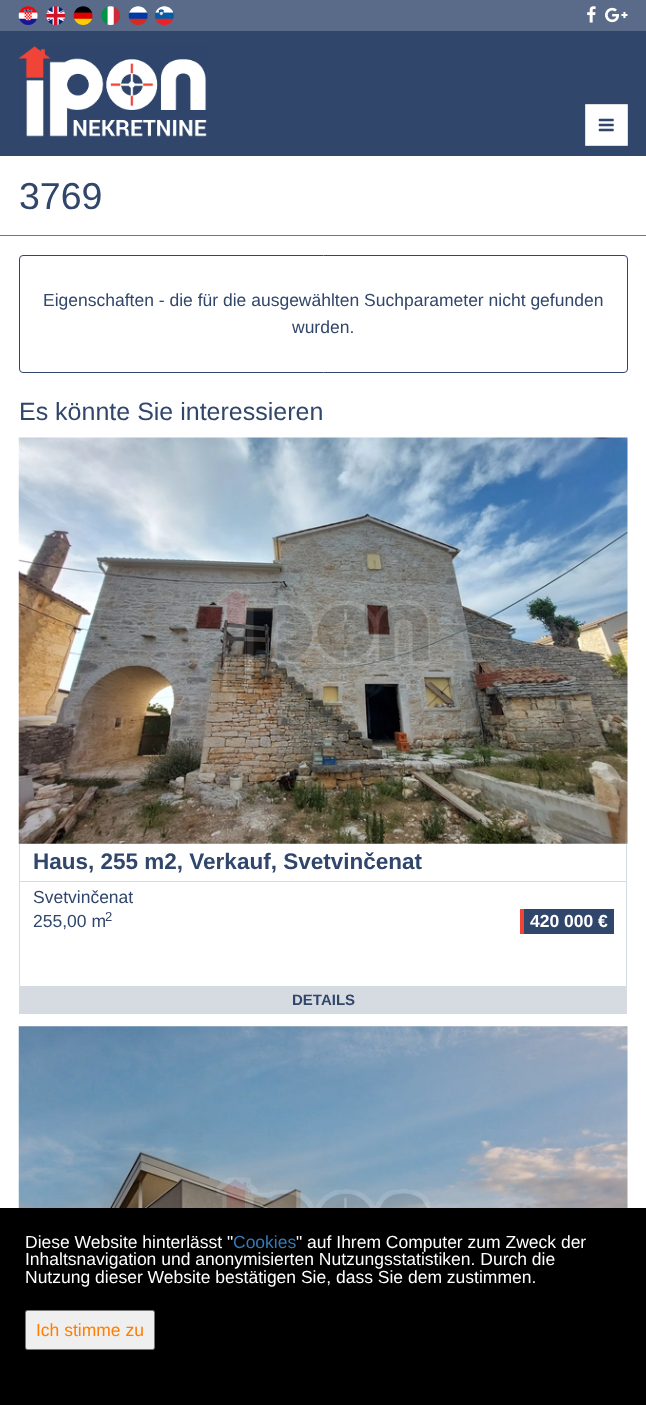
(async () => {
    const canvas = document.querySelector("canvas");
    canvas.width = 646;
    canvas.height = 1405;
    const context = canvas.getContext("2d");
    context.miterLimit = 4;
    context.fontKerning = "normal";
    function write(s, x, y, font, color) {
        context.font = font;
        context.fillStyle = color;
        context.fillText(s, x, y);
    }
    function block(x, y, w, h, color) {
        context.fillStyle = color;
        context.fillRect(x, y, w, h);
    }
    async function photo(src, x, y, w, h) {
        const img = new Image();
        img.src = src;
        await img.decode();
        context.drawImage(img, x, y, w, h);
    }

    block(0, 0, 646, 1405, "rgb(255, 255, 255)");
    block(0, 0, 646, 31, "rgb(90, 107, 137)");
    await photo("media/1.png", 18, 6, 20, 19);
    await photo("media/2.png", 46, 6, 19, 19);
    await photo("media/3.png", 73, 6, 20, 19);
    await photo("media/4.png", 101, 6, 19, 19);
    await photo("media/5.png", 128, 6, 20, 19);
    await photo("media/6.png", 155, 6, 19, 19);
    await photo("media/7.png", 587, 6, 9, 17);
    await photo("media/8.png", 605, 7, 23, 16);
    block(0, 31, 646, 125, "rgb(49, 70, 107)");
    await photo("media/9.png", 18, 46, 189, 91);
    context.fillStyle = "rgb(255, 255, 255)";
    context.beginPath();
    context.rect(585.5, 104.5, 42, 41);
    context.fill();
    context.strokeStyle = "rgb(221, 221, 221)";
    context.stroke();
    await photo("media/10.png", 598, 118, 16, 14);
    block(0, 235, 646, 1, "rgb(239, 68, 55)");
    write("3769", 19, 209, "37.5px Liberation Sans", "rgb(49, 70, 107)");
    context.beginPath();
    context.roundRect(19.5, 255.5, 608, 117, 3.5);
    context.strokeStyle = "rgb(49, 70, 107)";
    context.stroke();
    write("Eigenschaften - die für die ausgewählten Suchparameter nicht gefunden", 43, 306, "17.5px Liberation Sans", "rgb(49, 70, 107)");
    write("wurden.", 292, 333, "17.5px Liberation Sans", "rgb(49, 70, 107)");
    write("Es könnte Sie interessieren", 19, 420, "25px Liberation Sans", "rgb(49, 70, 107)");
    await photo("media/11.png", 18, 437, 610, 407);
    block(626, 844, 1, 170, "rgb(214, 218, 225)");
    block(19, 844, 1, 170, "rgb(214, 218, 225)");
    block(20, 881, 606, 1, "rgb(214, 218, 225)");
    write("Haus, 255 m2, Verkauf, Svetvinčenat", 33, 869, "bold 22.5px Liberation Sans", "rgb(49, 70, 107)");
    write("Svetvinčenat", 33, 903, "17.5px Liberation Sans", "rgb(49, 70, 107)");
    write("255,00 m", 33, 927, "17.5px Liberation Sans", "rgb(49, 70, 107)");
    write("2", 105, 921, "13px Liberation Sans", "rgb(49, 70, 107)");
    block(524, 909, 90, 25, "rgb(49, 70, 107)");
    block(520, 909, 4, 25, "rgb(239, 68, 55)");
    write("420 000 €", 530, 927, "bold 17.5px Liberation Sans", "rgb(255, 255, 255)");
    block(20, 986, 606, 28, "rgb(214, 218, 225)");
    write("DETAILS", 292, 1005, "bold 15px Liberation Sans", "rgb(49, 70, 107)");
    await photo("media/12.png", 18, 1026, 610, 182);
    block(0, 1208, 646, 197, "rgb(0, 0, 0)");
    write("Diese Website hinterlässt \"", 25, 1248, "17.5px Liberation Sans", "rgb(255, 255, 255)");
    write("Cookies", 233, 1248, "17.5px Liberation Sans", "rgb(51, 122, 183)");
    write("\" auf Ihrem Computer zum Zweck der", 296, 1248, "17.5px Liberation Sans", "rgb(255, 255, 255)");
    write("Inhaltsnavigation und anonymisierten Nutzungsstatistiken. Durch die", 25, 1265, "17.5px Liberation Sans", "rgb(255, 255, 255)");
    write("Nutzung dieser Website bestätigen Sie, dass Sie dem zustimmen.", 25, 1283, "17.5px Liberation Sans", "rgb(255, 255, 255)");
    context.fillStyle = "rgb(239, 239, 239)";
    context.beginPath();
    context.roundRect(25.5, 1310.5, 129, 39, 2);
    context.fill();
    context.strokeStyle = "rgb(118, 118, 118)";
    context.stroke();
    write("Ich stimme zu", 36, 1336, "17.5px Liberation Sans", "rgb(255, 126, 0)");
})();
